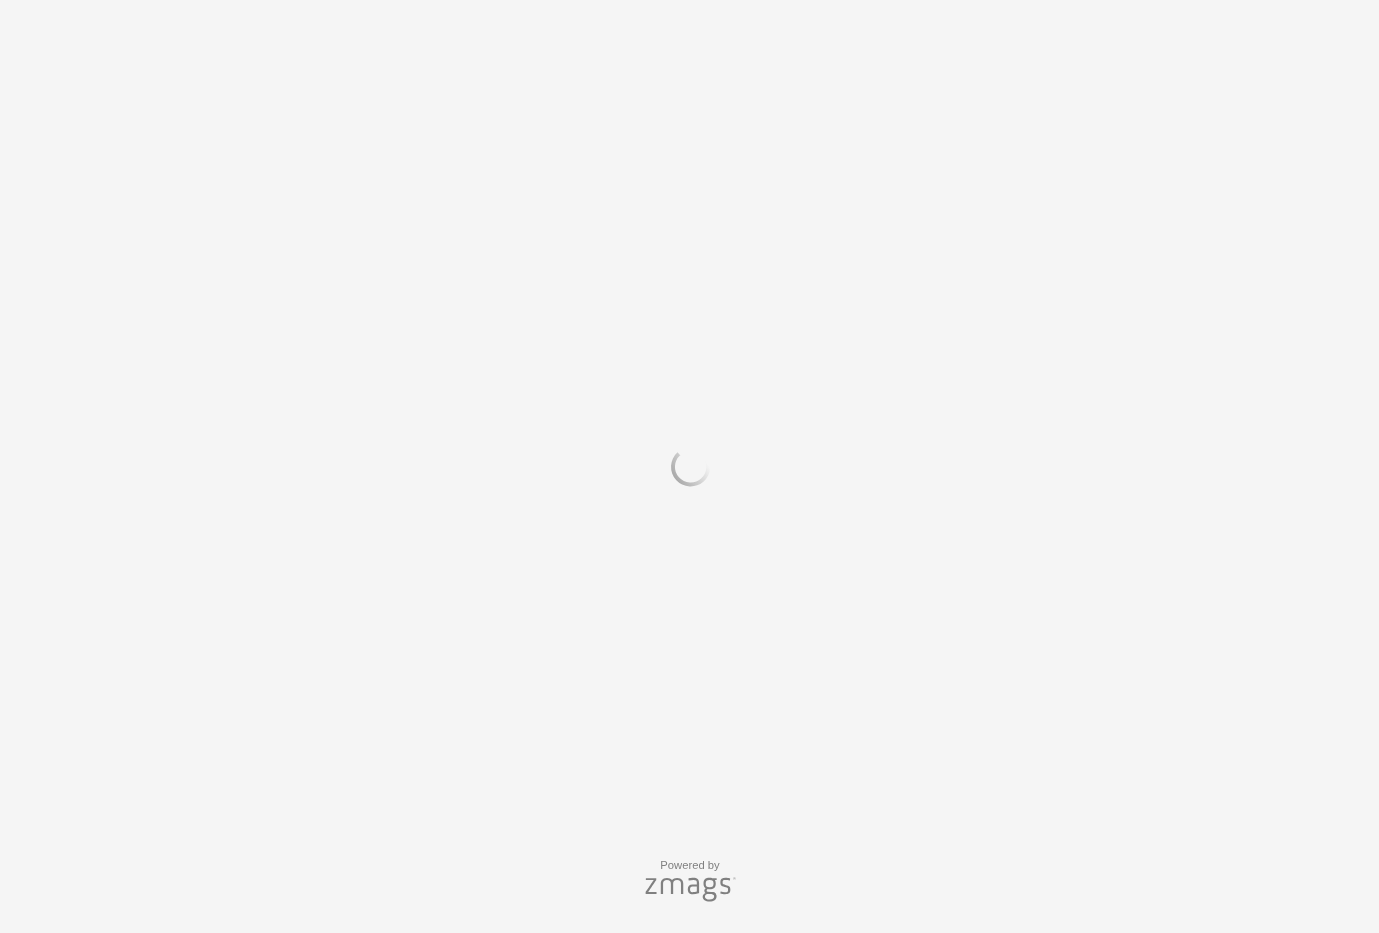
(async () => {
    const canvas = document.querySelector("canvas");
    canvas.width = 1379;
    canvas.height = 933;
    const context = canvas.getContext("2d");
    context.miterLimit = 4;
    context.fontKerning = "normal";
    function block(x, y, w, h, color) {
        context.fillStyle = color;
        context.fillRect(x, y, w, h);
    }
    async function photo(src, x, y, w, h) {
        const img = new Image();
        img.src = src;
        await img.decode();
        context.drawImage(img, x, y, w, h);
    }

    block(0, 0, 1379, 933, "rgb(255, 255, 255)");
    await photo("media/1.png", 0, 0, 1379, 933);
})();
